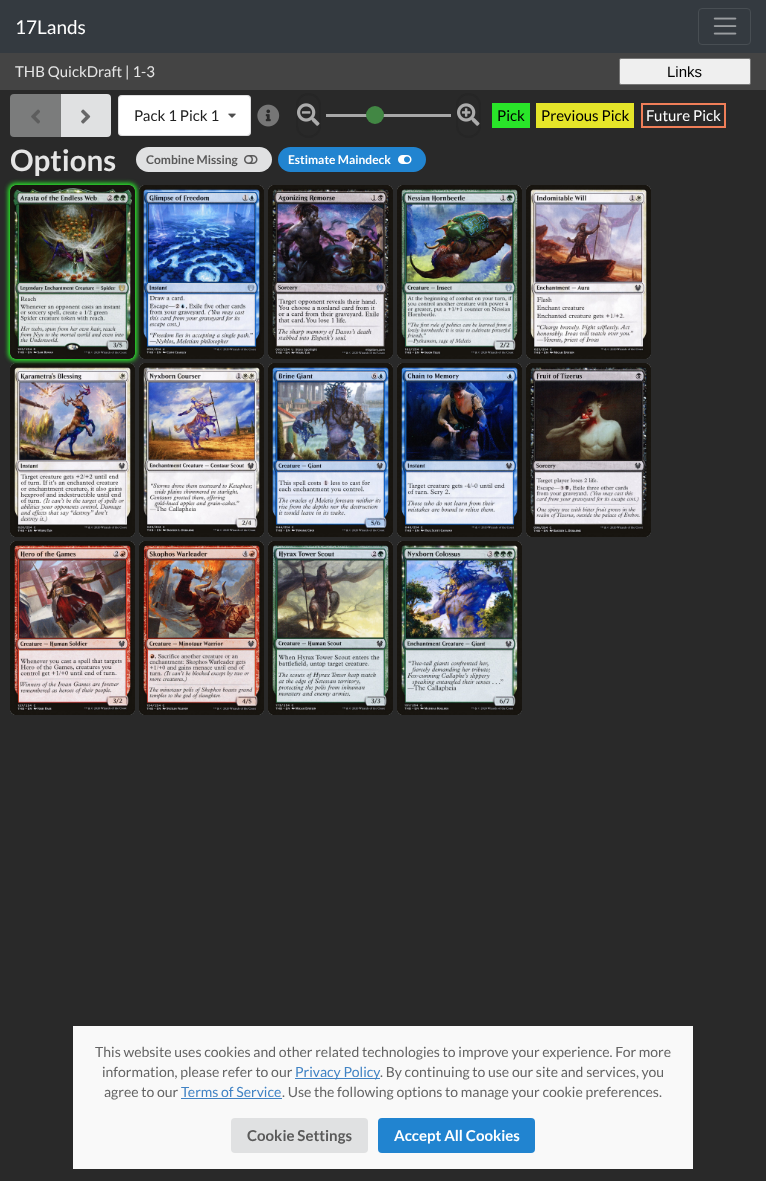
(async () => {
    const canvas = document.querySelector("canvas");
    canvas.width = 766;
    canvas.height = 1181;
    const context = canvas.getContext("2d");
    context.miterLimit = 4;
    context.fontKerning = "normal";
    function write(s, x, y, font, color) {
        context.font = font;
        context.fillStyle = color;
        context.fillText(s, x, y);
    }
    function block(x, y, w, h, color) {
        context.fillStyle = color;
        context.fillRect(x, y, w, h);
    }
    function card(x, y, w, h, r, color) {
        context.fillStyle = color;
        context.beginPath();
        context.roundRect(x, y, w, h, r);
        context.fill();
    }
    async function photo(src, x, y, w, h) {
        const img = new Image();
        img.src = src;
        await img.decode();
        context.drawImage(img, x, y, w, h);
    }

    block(0, 0, 766, 1181, "rgb(41, 41, 41)");
    block(0, 0, 766, 53, "rgb(52, 58, 64)");
    write("17Lands", 15, 34, "19px Lato", "rgb(255, 255, 255)");
    context.beginPath();
    context.roundRect(698.5, 8.5, 52, 36, 3.5);
    context.strokeStyle = "rgb(72, 78, 83)";
    context.stroke();
    await photo("media/1.png", 713, 17, 24, 18);
    block(0, 53, 766, 37, "rgb(68, 68, 68)");
    write("THB QuickDraft | 1-3", 15, 77, "15px Lato", "rgb(229, 229, 229)");
    context.fillStyle = "rgb(239, 239, 239)";
    context.beginPath();
    context.roundRect(619.5, 58.5, 131, 26, 1.5);
    context.fill();
    context.strokeStyle = "rgb(118, 118, 118)";
    context.stroke();
    write("Links", 667, 77, "15px Liberation Sans", "rgb(0, 0, 0)");
    context.fillStyle = "rgb(123, 124, 124)";
    context.beginPath();
    context.roundRect(10, 94, 51, 43, [4, 0, 0, 4]);
    context.fill();
    await photo("media/2.png", 31, 109, 9, 15);
    context.fillStyle = "rgb(224, 225, 226)";
    context.beginPath();
    context.roundRect(61, 94, 50, 43, [0, 4, 4, 0]);
    context.fill();
    await photo("media/3.png", 81, 109, 10, 15);
    card(118, 95, 133, 41, 4, "rgb(255, 255, 255)");
    context.beginPath();
    context.roundRect(118.5, 95.5, 132, 40, 3.5);
    context.strokeStyle = "rgba(34, 36, 38, 0.15)";
    context.stroke();
    write("Pack 1 Pick 1", 134, 121, "15px Lato", "rgb(33, 33, 33)");
    await photo("media/4.png", 228, 113, 8, 5);
    await photo("media/5.png", 257, 104, 23, 23);
    context.beginPath();
    context.roundRect(297, 94, 23, 43, 11.5);
    context.strokeStyle = "rgb(38, 38, 38)";
    context.lineWidth = 2;
    context.stroke();
    await photo("media/6.png", 297, 103, 23, 23);
    block(326, 114, 125, 3, "rgb(167, 167, 167)");
    context.fillStyle = "rgb(66, 135, 68)";
    context.beginPath();
    context.arc(375, 115, 9, 0, Math.PI * 2);
    context.fill();
    context.beginPath();
    context.roundRect(457, 94, 23, 43, 11.5);
    context.stroke();
    await photo("media/7.png", 457, 103, 23, 23);
    block(492, 103, 38, 25, "rgb(41, 229, 41)");
    write("Pick", 497, 121, "15px Lato", "rgb(0, 0, 0)");
    block(536, 103, 98, 25, "rgb(229, 229, 41)");
    write("Previous Pick", 541, 121, "15px Lato", "rgb(0, 0, 0)");
    context.strokeStyle = "rgb(239, 126, 88)";
    context.strokeRect(642, 104, 83, 23);
    write("Future Pick", 646, 121, "15px Lato", "rgb(255, 255, 255)");
    write("Options", 10, 171, "bold 29.5px Lato", "rgb(229, 229, 229)");
    card(136, 147, 136, 25, 12.5, "rgb(224, 225, 226)");
    write("Combine Missing", 146, 164, "bold 12px Lato", "rgb(90, 90, 90)");
    await photo("media/8.png", 244, 155, 14, 9);
    card(278, 147, 148, 25, 12.5, "rgb(33, 132, 208)");
    write("Estimate Maindeck", 288, 164, "bold 12px Lato", "rgb(255, 255, 255)");
    await photo("media/9.png", 398, 155, 14, 9);
    await photo("media/11.png", 139, 185, 125, 174);
    await photo("media/15.png", 10, 363, 125, 174);
    await photo("media/16.png", 139, 363, 125, 174);
    context.fillStyle = "rgb(41, 229, 41)";
    context.filter = "blur(2px)";
    context.beginPath();
    context.roundRect(8, 183, 129, 178, 8);
    context.fill();
    context.filter = "none";
    await photo("media/10.png", 10, 185, 125, 174);
    await photo("media/12.png", 268, 185, 125, 174);
    await photo("media/13.png", 397, 185, 125, 174);
    await photo("media/14.png", 526, 185, 125, 174);
    await photo("media/17.png", 268, 363, 125, 174);
    await photo("media/18.png", 397, 363, 125, 174);
    await photo("media/19.png", 526, 363, 125, 174);
    await photo("media/20.png", 10, 541, 125, 174);
    await photo("media/21.png", 139, 541, 125, 174);
    await photo("media/22.png", 268, 541, 125, 174);
    await photo("media/23.png", 397, 541, 125, 174);
    block(73, 1026, 620, 143, "rgb(249, 249, 249)");
    write("This website uses cookies and other related technologies to improve your experience. For more", 95, 1057, "14px Lato", "rgb(100, 100, 100)");
    write("information, please refer to our", 102, 1077, "14px Lato", "rgb(100, 100, 100)");
    block(295, 1078, 85, 1, "rgb(65, 131, 196)");
    write("Privacy Policy", 295, 1077, "14px Lato", "rgb(65, 131, 196)");
    write(". By continuing to use our site and services, you", 380, 1077, "14px Lato", "rgb(100, 100, 100)");
    write("agree to our", 104, 1097, "14px Lato", "rgb(100, 100, 100)");
    write("Terms of Service", 181, 1097, "14px Lato", "rgb(65, 131, 196)");
    block(181, 1098, 101, 1, "rgb(65, 131, 196)");
    write(". Use the following options to manage your cookie preferences.", 282, 1097, "14px Lato", "rgb(100, 100, 100)");
    card(231, 1118, 137, 35, 4, "rgb(224, 225, 226)");
    write("Cookie Settings", 247, 1141, "bold 15px Lato", "rgb(90, 90, 90)");
    card(378, 1118, 157, 35, 4, "rgb(33, 132, 208)");
    write("Accept All Cookies", 394, 1141, "bold 15px Lato", "rgb(255, 255, 255)");
})();
